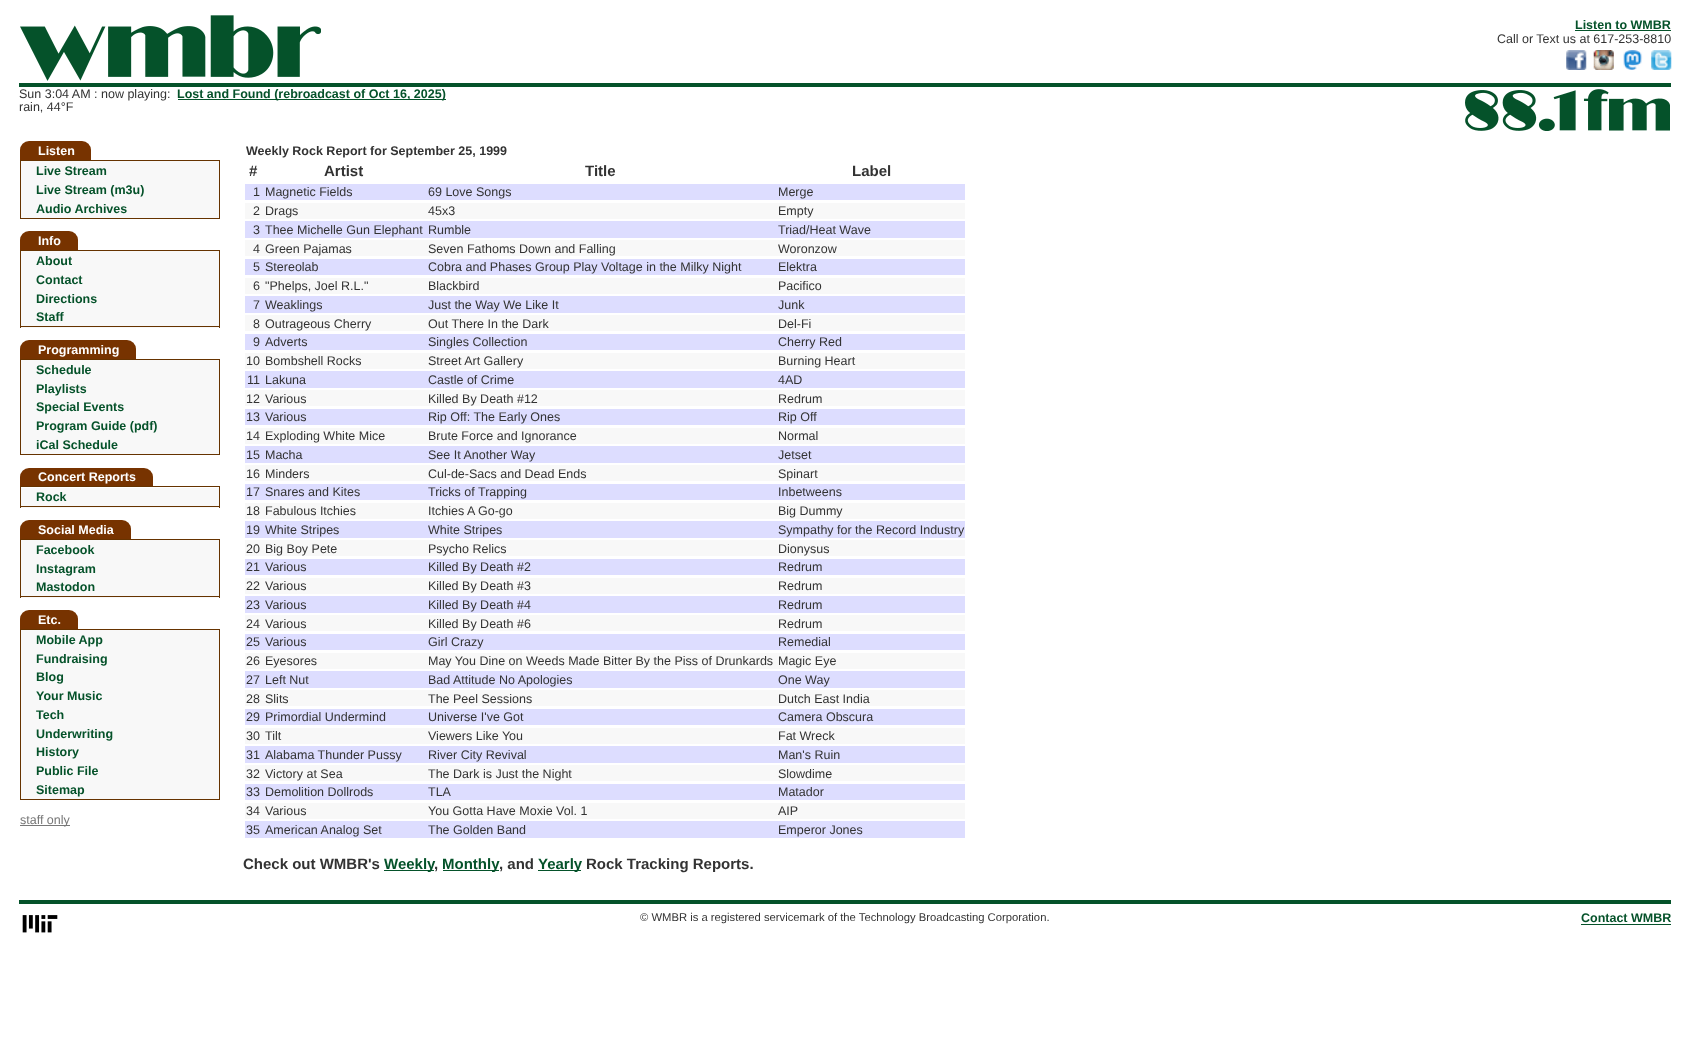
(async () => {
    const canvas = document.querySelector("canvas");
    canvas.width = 1690;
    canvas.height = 1056;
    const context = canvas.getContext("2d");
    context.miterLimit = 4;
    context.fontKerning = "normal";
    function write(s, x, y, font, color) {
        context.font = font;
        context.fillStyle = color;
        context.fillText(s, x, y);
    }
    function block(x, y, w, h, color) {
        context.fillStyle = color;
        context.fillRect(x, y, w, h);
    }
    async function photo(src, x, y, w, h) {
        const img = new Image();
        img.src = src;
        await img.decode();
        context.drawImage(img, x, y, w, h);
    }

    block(0, 0, 1690, 1056, "rgb(255, 255, 255)");
    await photo("media/1.png", 20, 15, 301, 66);
    write("Listen to WMBR", 1575, 29, "bold 12.5px Liberation Sans", "rgb(5, 82, 42)");
    block(1575, 30, 96, 1, "rgb(5, 82, 42)");
    write("Call or Text us at 617-253-8810", 1497, 43, "12.5px Liberation Sans", "rgb(51, 51, 51)");
    await photo("media/2.png", 1566, 50, 21, 20);
    await photo("media/3.png", 1593, 50, 21, 20);
    await photo("media/4.png", 1623, 50, 20, 20);
    await photo("media/5.png", 1651, 50, 21, 20);
    block(19, 83, 1652, 4, "rgb(5, 82, 42)");
    write("Sun 3:04 AM : now playing:", 19, 98, "12.5px Liberation Sans", "rgb(51, 51, 51)");
    block(178, 99, 268, 1, "rgb(5, 82, 42)");
    write("Lost and Found (rebroadcast of Oct 16, 2025)", 177, 98, "bold 12.5px Liberation Sans", "rgb(5, 82, 42)");
    write("rain, 44°F", 19, 111, "12.5px Liberation Sans", "rgb(51, 51, 51)");
    await photo("media/6.png", 1465, 89, 205, 42);
    context.fillStyle = "rgb(119, 51, 0)";
    context.beginPath();
    context.roundRect(20, 141, 71, 19, [9, 9, 0, 0]);
    context.fill();
    write("Listen", 38, 155, "bold 12.5px Liberation Sans", "rgb(255, 255, 255)");
    block(20, 160, 200, 1, "rgb(102, 51, 0)");
    block(219, 160, 1, 59, "rgb(102, 51, 0)");
    block(20, 218, 200, 1, "rgb(102, 51, 0)");
    block(20, 160, 1, 59, "rgb(102, 51, 0)");
    block(21, 161, 198, 57, "rgb(248, 248, 248)");
    write("Live Stream", 36, 175, "bold 12.5px Liberation Sans", "rgb(5, 82, 42)");
    write("Live Stream (m3u)", 36, 194, "bold 12.5px Liberation Sans", "rgb(5, 82, 42)");
    write("Audio Archives", 36, 213, "bold 12.5px Liberation Sans", "rgb(5, 82, 42)");
    context.fillStyle = "rgb(119, 51, 0)";
    context.beginPath();
    context.roundRect(20, 231, 58, 19, [9, 9, 0, 0]);
    context.fill();
    write("Info", 38, 245, "bold 12.5px Liberation Sans", "rgb(255, 255, 255)");
    block(20, 250, 200, 1, "rgb(102, 51, 0)");
    block(219, 250, 1, 78, "rgb(102, 51, 0)");
    block(21, 251, 198, 77, "rgb(248, 248, 248)");
    block(20, 326, 200, 1, "rgb(102, 51, 0)");
    block(20, 250, 1, 78, "rgb(102, 51, 0)");
    write("About", 36, 265, "bold 12.5px Liberation Sans", "rgb(5, 82, 42)");
    write("Contact", 36, 284, "bold 12.5px Liberation Sans", "rgb(5, 82, 42)");
    write("Directions", 36, 303, "bold 12.5px Liberation Sans", "rgb(5, 82, 42)");
    write("Staff", 36, 321, "bold 12.5px Liberation Sans", "rgb(5, 82, 42)");
    context.fillStyle = "rgb(119, 51, 0)";
    context.beginPath();
    context.roundRect(20, 340, 116, 19, [9, 9, 0, 0]);
    context.fill();
    write("Programming", 38, 354, "bold 12.5px Liberation Sans", "rgb(255, 255, 255)");
    block(20, 359, 200, 1, "rgb(102, 51, 0)");
    block(219, 359, 1, 96, "rgb(102, 51, 0)");
    block(20, 454, 200, 1, "rgb(102, 51, 0)");
    block(20, 359, 1, 96, "rgb(102, 51, 0)");
    block(21, 360, 198, 94, "rgb(248, 248, 248)");
    write("Schedule", 36, 374, "bold 12.5px Liberation Sans", "rgb(5, 82, 42)");
    write("Playlists", 36, 393, "bold 12.5px Liberation Sans", "rgb(5, 82, 42)");
    write("Special Events", 36, 411, "bold 12.5px Liberation Sans", "rgb(5, 82, 42)");
    write("Program Guide (pdf)", 36, 430, "bold 12.5px Liberation Sans", "rgb(5, 82, 42)");
    write("iCal Schedule", 36, 449, "bold 12.5px Liberation Sans", "rgb(5, 82, 42)");
    context.fillStyle = "rgb(119, 51, 0)";
    context.beginPath();
    context.roundRect(20, 468, 133, 18, [9, 9, 0, 0]);
    context.fill();
    write("Concert Reports", 38, 481, "bold 12.5px Liberation Sans", "rgb(255, 255, 255)");
    block(20, 486, 200, 1, "rgb(102, 51, 0)");
    block(219, 486, 1, 22, "rgb(102, 51, 0)");
    block(21, 488, 198, 20, "rgb(248, 248, 248)");
    block(20, 506, 200, 1, "rgb(102, 51, 0)");
    block(20, 486, 1, 22, "rgb(102, 51, 0)");
    write("Rock", 36, 501, "bold 12.5px Liberation Sans", "rgb(5, 82, 42)");
    context.fillStyle = "rgb(119, 51, 0)";
    context.beginPath();
    context.roundRect(20, 520, 111, 19, [9, 9, 0, 0]);
    context.fill();
    write("Social Media", 38, 534, "bold 12.5px Liberation Sans", "rgb(255, 255, 255)");
    block(20, 539, 200, 1, "rgb(102, 51, 0)");
    block(219, 539, 1, 59, "rgb(102, 51, 0)");
    block(21, 540, 198, 58, "rgb(248, 248, 248)");
    block(20, 596, 200, 1, "rgb(102, 51, 0)");
    block(20, 539, 1, 59, "rgb(102, 51, 0)");
    write("Facebook", 36, 554, "bold 12.5px Liberation Sans", "rgb(5, 82, 42)");
    write("Instagram", 36, 573, "bold 12.5px Liberation Sans", "rgb(5, 82, 42)");
    write("Mastodon", 36, 591, "bold 12.5px Liberation Sans", "rgb(5, 82, 42)");
    context.fillStyle = "rgb(119, 51, 0)";
    context.beginPath();
    context.roundRect(20, 610, 58, 19, [9, 9, 0, 0]);
    context.fill();
    write("Etc.", 38, 624, "bold 12.5px Liberation Sans", "rgb(255, 255, 255)");
    block(20, 629, 200, 1, "rgb(102, 51, 0)");
    block(219, 629, 1, 171, "rgb(102, 51, 0)");
    block(20, 799, 200, 1, "rgb(102, 51, 0)");
    block(20, 629, 1, 171, "rgb(102, 51, 0)");
    block(21, 630, 198, 169, "rgb(248, 248, 248)");
    write("Mobile App", 36, 644, "bold 12.5px Liberation Sans", "rgb(5, 82, 42)");
    write("Fundraising", 36, 663, "bold 12.5px Liberation Sans", "rgb(5, 82, 42)");
    write("Blog", 36, 681, "bold 12.5px Liberation Sans", "rgb(5, 82, 42)");
    write("Your Music", 36, 700, "bold 12.5px Liberation Sans", "rgb(5, 82, 42)");
    write("Tech", 36, 719, "bold 12.5px Liberation Sans", "rgb(5, 82, 42)");
    write("Underwriting", 36, 738, "bold 12.5px Liberation Sans", "rgb(5, 82, 42)");
    write("History", 36, 756, "bold 12.5px Liberation Sans", "rgb(5, 82, 42)");
    write("Public File", 36, 775, "bold 12.5px Liberation Sans", "rgb(5, 82, 42)");
    write("Sitemap", 36, 794, "bold 12.5px Liberation Sans", "rgb(5, 82, 42)");
    block(20, 825, 50, 1, "rgb(119, 119, 119)");
    write("staff only", 20, 824, "12.5px Liberation Sans", "rgb(119, 119, 119)");
    write("Weekly Rock Report for September 25, 1999", 246, 155, "bold 12.5px Liberation Sans", "rgb(51, 51, 51)");
    write("#", 249, 176, "bold 15px Liberation Sans", "rgb(51, 51, 51)");
    write("Artist", 324, 176, "bold 15px Liberation Sans", "rgb(51, 51, 51)");
    write("Title", 585, 176, "bold 15px Liberation Sans", "rgb(51, 51, 51)");
    write("Label", 852, 176, "bold 15px Liberation Sans", "rgb(51, 51, 51)");
    block(245, 184, 720, 16, "rgb(221, 221, 255)");
    write("1", 253, 196, "12.5px Liberation Sans", "rgb(51, 51, 51)");
    write("Magnetic Fields", 265, 196, "12.5px Liberation Sans", "rgb(51, 51, 51)");
    write("69 Love Songs", 428, 196, "12.5px Liberation Sans", "rgb(51, 51, 51)");
    write("Merge", 778, 196, "12.5px Liberation Sans", "rgb(51, 51, 51)");
    block(245, 203, 720, 16, "rgb(248, 248, 248)");
    write("2", 253, 215, "12.5px Liberation Sans", "rgb(51, 51, 51)");
    write("Drags", 265, 215, "12.5px Liberation Sans", "rgb(51, 51, 51)");
    write("45x3", 428, 215, "12.5px Liberation Sans", "rgb(51, 51, 51)");
    write("Empty", 778, 215, "12.5px Liberation Sans", "rgb(51, 51, 51)");
    block(245, 221, 720, 17, "rgb(221, 221, 255)");
    write("3", 253, 234, "12.5px Liberation Sans", "rgb(51, 51, 51)");
    write("Thee Michelle Gun Elephant", 265, 234, "12.5px Liberation Sans", "rgb(51, 51, 51)");
    write("Rumble", 428, 234, "12.5px Liberation Sans", "rgb(51, 51, 51)");
    write("Triad/Heat Wave", 778, 234, "12.5px Liberation Sans", "rgb(51, 51, 51)");
    block(245, 240, 720, 16, "rgb(248, 248, 248)");
    write("4", 253, 253, "12.5px Liberation Sans", "rgb(51, 51, 51)");
    write("Green Pajamas", 265, 253, "12.5px Liberation Sans", "rgb(51, 51, 51)");
    write("Seven Fathoms Down and Falling", 428, 253, "12.5px Liberation Sans", "rgb(51, 51, 51)");
    write("Woronzow", 778, 253, "12.5px Liberation Sans", "rgb(51, 51, 51)");
    block(245, 259, 720, 16, "rgb(221, 221, 255)");
    write("5", 253, 271, "12.5px Liberation Sans", "rgb(51, 51, 51)");
    write("Stereolab", 265, 271, "12.5px Liberation Sans", "rgb(51, 51, 51)");
    write("Cobra and Phases Group Play Voltage in the Milky Night", 428, 271, "12.5px Liberation Sans", "rgb(51, 51, 51)");
    write("Elektra", 778, 271, "12.5px Liberation Sans", "rgb(51, 51, 51)");
    block(245, 278, 720, 16, "rgb(248, 248, 248)");
    write("6", 253, 290, "12.5px Liberation Sans", "rgb(51, 51, 51)");
    write("\"Phelps, Joel R.L.\"", 265, 290, "12.5px Liberation Sans", "rgb(51, 51, 51)");
    write("Blackbird", 428, 290, "12.5px Liberation Sans", "rgb(51, 51, 51)");
    write("Pacifico", 778, 290, "12.5px Liberation Sans", "rgb(51, 51, 51)");
    block(245, 296, 720, 17, "rgb(221, 221, 255)");
    write("7", 253, 309, "12.5px Liberation Sans", "rgb(51, 51, 51)");
    write("Weaklings", 265, 309, "12.5px Liberation Sans", "rgb(51, 51, 51)");
    write("Just the Way We Like It", 428, 309, "12.5px Liberation Sans", "rgb(51, 51, 51)");
    write("Junk", 778, 309, "12.5px Liberation Sans", "rgb(51, 51, 51)");
    block(245, 315, 720, 16, "rgb(248, 248, 248)");
    write("8", 253, 328, "12.5px Liberation Sans", "rgb(51, 51, 51)");
    write("Outrageous Cherry", 265, 328, "12.5px Liberation Sans", "rgb(51, 51, 51)");
    write("Out There In the Dark", 428, 328, "12.5px Liberation Sans", "rgb(51, 51, 51)");
    write("Del-Fi", 778, 328, "12.5px Liberation Sans", "rgb(51, 51, 51)");
    block(245, 334, 720, 16, "rgb(221, 221, 255)");
    write("9", 253, 346, "12.5px Liberation Sans", "rgb(51, 51, 51)");
    write("Adverts", 265, 346, "12.5px Liberation Sans", "rgb(51, 51, 51)");
    write("Singles Collection", 428, 346, "12.5px Liberation Sans", "rgb(51, 51, 51)");
    write("Cherry Red", 778, 346, "12.5px Liberation Sans", "rgb(51, 51, 51)");
    block(245, 353, 720, 16, "rgb(248, 248, 248)");
    write("10", 246, 365, "12.5px Liberation Sans", "rgb(51, 51, 51)");
    write("Bombshell Rocks", 265, 365, "12.5px Liberation Sans", "rgb(51, 51, 51)");
    write("Street Art Gallery", 428, 365, "12.5px Liberation Sans", "rgb(51, 51, 51)");
    write("Burning Heart", 778, 365, "12.5px Liberation Sans", "rgb(51, 51, 51)");
    block(245, 371, 720, 17, "rgb(221, 221, 255)");
    write("11", 247, 384, "12.5px Liberation Sans", "rgb(51, 51, 51)");
    write("Lakuna", 265, 384, "12.5px Liberation Sans", "rgb(51, 51, 51)");
    write("Castle of Crime", 428, 384, "12.5px Liberation Sans", "rgb(51, 51, 51)");
    write("4AD", 778, 384, "12.5px Liberation Sans", "rgb(51, 51, 51)");
    block(245, 390, 720, 16, "rgb(248, 248, 248)");
    write("12", 246, 403, "12.5px Liberation Sans", "rgb(51, 51, 51)");
    write("Various", 265, 403, "12.5px Liberation Sans", "rgb(51, 51, 51)");
    write("Killed By Death #12", 428, 403, "12.5px Liberation Sans", "rgb(51, 51, 51)");
    write("Redrum", 778, 403, "12.5px Liberation Sans", "rgb(51, 51, 51)");
    block(245, 409, 720, 16, "rgb(221, 221, 255)");
    write("13", 246, 421, "12.5px Liberation Sans", "rgb(51, 51, 51)");
    write("Various", 265, 421, "12.5px Liberation Sans", "rgb(51, 51, 51)");
    write("Rip Off: The Early Ones", 428, 421, "12.5px Liberation Sans", "rgb(51, 51, 51)");
    write("Rip Off", 778, 421, "12.5px Liberation Sans", "rgb(51, 51, 51)");
    block(245, 428, 720, 16, "rgb(248, 248, 248)");
    write("14", 246, 440, "12.5px Liberation Sans", "rgb(51, 51, 51)");
    write("Exploding White Mice", 265, 440, "12.5px Liberation Sans", "rgb(51, 51, 51)");
    write("Brute Force and Ignorance", 428, 440, "12.5px Liberation Sans", "rgb(51, 51, 51)");
    write("Normal", 778, 440, "12.5px Liberation Sans", "rgb(51, 51, 51)");
    block(245, 446, 720, 17, "rgb(221, 221, 255)");
    write("15", 246, 459, "12.5px Liberation Sans", "rgb(51, 51, 51)");
    write("Macha", 265, 459, "12.5px Liberation Sans", "rgb(51, 51, 51)");
    write("See It Another Way", 428, 459, "12.5px Liberation Sans", "rgb(51, 51, 51)");
    write("Jetset", 778, 459, "12.5px Liberation Sans", "rgb(51, 51, 51)");
    block(245, 465, 720, 16, "rgb(248, 248, 248)");
    write("16", 246, 478, "12.5px Liberation Sans", "rgb(51, 51, 51)");
    write("Minders", 265, 478, "12.5px Liberation Sans", "rgb(51, 51, 51)");
    write("Cul-de-Sacs and Dead Ends", 428, 478, "12.5px Liberation Sans", "rgb(51, 51, 51)");
    write("Spinart", 778, 478, "12.5px Liberation Sans", "rgb(51, 51, 51)");
    block(245, 484, 720, 16, "rgb(221, 221, 255)");
    write("17", 246, 496, "12.5px Liberation Sans", "rgb(51, 51, 51)");
    write("Snares and Kites", 265, 496, "12.5px Liberation Sans", "rgb(51, 51, 51)");
    write("Tricks of Trapping", 428, 496, "12.5px Liberation Sans", "rgb(51, 51, 51)");
    write("Inbetweens", 778, 496, "12.5px Liberation Sans", "rgb(51, 51, 51)");
    block(245, 503, 720, 16, "rgb(248, 248, 248)");
    write("18", 246, 515, "12.5px Liberation Sans", "rgb(51, 51, 51)");
    write("Fabulous Itchies", 265, 515, "12.5px Liberation Sans", "rgb(51, 51, 51)");
    write("Itchies A Go-go", 428, 515, "12.5px Liberation Sans", "rgb(51, 51, 51)");
    write("Big Dummy", 778, 515, "12.5px Liberation Sans", "rgb(51, 51, 51)");
    block(245, 521, 720, 17, "rgb(221, 221, 255)");
    write("19", 246, 534, "12.5px Liberation Sans", "rgb(51, 51, 51)");
    write("White Stripes", 265, 534, "12.5px Liberation Sans", "rgb(51, 51, 51)");
    write("White Stripes", 428, 534, "12.5px Liberation Sans", "rgb(51, 51, 51)");
    write("Sympathy for the Record Industry", 778, 534, "12.5px Liberation Sans", "rgb(51, 51, 51)");
    block(245, 540, 720, 16, "rgb(248, 248, 248)");
    write("20", 246, 553, "12.5px Liberation Sans", "rgb(51, 51, 51)");
    write("Big Boy Pete", 265, 553, "12.5px Liberation Sans", "rgb(51, 51, 51)");
    write("Psycho Relics", 428, 553, "12.5px Liberation Sans", "rgb(51, 51, 51)");
    write("Dionysus", 778, 553, "12.5px Liberation Sans", "rgb(51, 51, 51)");
    block(245, 559, 720, 16, "rgb(221, 221, 255)");
    write("21", 246, 571, "12.5px Liberation Sans", "rgb(51, 51, 51)");
    write("Various", 265, 571, "12.5px Liberation Sans", "rgb(51, 51, 51)");
    write("Killed By Death #2", 428, 571, "12.5px Liberation Sans", "rgb(51, 51, 51)");
    write("Redrum", 778, 571, "12.5px Liberation Sans", "rgb(51, 51, 51)");
    block(245, 578, 720, 16, "rgb(248, 248, 248)");
    write("22", 246, 590, "12.5px Liberation Sans", "rgb(51, 51, 51)");
    write("Various", 265, 590, "12.5px Liberation Sans", "rgb(51, 51, 51)");
    write("Killed By Death #3", 428, 590, "12.5px Liberation Sans", "rgb(51, 51, 51)");
    write("Redrum", 778, 590, "12.5px Liberation Sans", "rgb(51, 51, 51)");
    block(245, 596, 720, 17, "rgb(221, 221, 255)");
    write("23", 246, 609, "12.5px Liberation Sans", "rgb(51, 51, 51)");
    write("Various", 265, 609, "12.5px Liberation Sans", "rgb(51, 51, 51)");
    write("Killed By Death #4", 428, 609, "12.5px Liberation Sans", "rgb(51, 51, 51)");
    write("Redrum", 778, 609, "12.5px Liberation Sans", "rgb(51, 51, 51)");
    block(245, 615, 720, 16, "rgb(248, 248, 248)");
    write("24", 246, 628, "12.5px Liberation Sans", "rgb(51, 51, 51)");
    write("Various", 265, 628, "12.5px Liberation Sans", "rgb(51, 51, 51)");
    write("Killed By Death #6", 428, 628, "12.5px Liberation Sans", "rgb(51, 51, 51)");
    write("Redrum", 778, 628, "12.5px Liberation Sans", "rgb(51, 51, 51)");
    block(245, 634, 720, 16, "rgb(221, 221, 255)");
    write("25", 246, 646, "12.5px Liberation Sans", "rgb(51, 51, 51)");
    write("Various", 265, 646, "12.5px Liberation Sans", "rgb(51, 51, 51)");
    write("Girl Crazy", 428, 646, "12.5px Liberation Sans", "rgb(51, 51, 51)");
    write("Remedial", 778, 646, "12.5px Liberation Sans", "rgb(51, 51, 51)");
    block(245, 653, 720, 16, "rgb(248, 248, 248)");
    write("26", 246, 665, "12.5px Liberation Sans", "rgb(51, 51, 51)");
    write("Eyesores", 265, 665, "12.5px Liberation Sans", "rgb(51, 51, 51)");
    write("May You Dine on Weeds Made Bitter By the Piss of Drunkards", 428, 665, "12.5px Liberation Sans", "rgb(51, 51, 51)");
    write("Magic Eye", 778, 665, "12.5px Liberation Sans", "rgb(51, 51, 51)");
    block(245, 671, 720, 17, "rgb(221, 221, 255)");
    write("27", 246, 684, "12.5px Liberation Sans", "rgb(51, 51, 51)");
    write("Left Nut", 265, 684, "12.5px Liberation Sans", "rgb(51, 51, 51)");
    write("Bad Attitude No Apologies", 428, 684, "12.5px Liberation Sans", "rgb(51, 51, 51)");
    write("One Way", 778, 684, "12.5px Liberation Sans", "rgb(51, 51, 51)");
    block(245, 690, 720, 16, "rgb(248, 248, 248)");
    write("28", 246, 703, "12.5px Liberation Sans", "rgb(51, 51, 51)");
    write("Slits", 265, 703, "12.5px Liberation Sans", "rgb(51, 51, 51)");
    write("The Peel Sessions", 428, 703, "12.5px Liberation Sans", "rgb(51, 51, 51)");
    write("Dutch East India", 778, 703, "12.5px Liberation Sans", "rgb(51, 51, 51)");
    block(245, 709, 720, 16, "rgb(221, 221, 255)");
    write("29", 246, 721, "12.5px Liberation Sans", "rgb(51, 51, 51)");
    write("Primordial Undermind", 265, 721, "12.5px Liberation Sans", "rgb(51, 51, 51)");
    write("Universe I've Got", 428, 721, "12.5px Liberation Sans", "rgb(51, 51, 51)");
    write("Camera Obscura", 778, 721, "12.5px Liberation Sans", "rgb(51, 51, 51)");
    block(245, 728, 720, 16, "rgb(248, 248, 248)");
    write("30", 246, 740, "12.5px Liberation Sans", "rgb(51, 51, 51)");
    write("Tilt", 265, 740, "12.5px Liberation Sans", "rgb(51, 51, 51)");
    write("Viewers Like You", 428, 740, "12.5px Liberation Sans", "rgb(51, 51, 51)");
    write("Fat Wreck", 778, 740, "12.5px Liberation Sans", "rgb(51, 51, 51)");
    block(245, 746, 720, 17, "rgb(221, 221, 255)");
    write("31", 246, 759, "12.5px Liberation Sans", "rgb(51, 51, 51)");
    write("Alabama Thunder Pussy", 265, 759, "12.5px Liberation Sans", "rgb(51, 51, 51)");
    write("River City Revival", 428, 759, "12.5px Liberation Sans", "rgb(51, 51, 51)");
    write("Man's Ruin", 778, 759, "12.5px Liberation Sans", "rgb(51, 51, 51)");
    block(245, 765, 720, 16, "rgb(248, 248, 248)");
    write("32", 246, 778, "12.5px Liberation Sans", "rgb(51, 51, 51)");
    write("Victory at Sea", 265, 778, "12.5px Liberation Sans", "rgb(51, 51, 51)");
    write("The Dark is Just the Night", 428, 778, "12.5px Liberation Sans", "rgb(51, 51, 51)");
    write("Slowdime", 778, 778, "12.5px Liberation Sans", "rgb(51, 51, 51)");
    block(245, 784, 720, 16, "rgb(221, 221, 255)");
    write("33", 246, 796, "12.5px Liberation Sans", "rgb(51, 51, 51)");
    write("Demolition Dollrods", 265, 796, "12.5px Liberation Sans", "rgb(51, 51, 51)");
    write("TLA", 428, 796, "12.5px Liberation Sans", "rgb(51, 51, 51)");
    write("Matador", 778, 796, "12.5px Liberation Sans", "rgb(51, 51, 51)");
    block(245, 803, 720, 16, "rgb(248, 248, 248)");
    write("34", 246, 815, "12.5px Liberation Sans", "rgb(51, 51, 51)");
    write("Various", 265, 815, "12.5px Liberation Sans", "rgb(51, 51, 51)");
    write("You Gotta Have Moxie Vol. 1", 428, 815, "12.5px Liberation Sans", "rgb(51, 51, 51)");
    write("AIP", 778, 815, "12.5px Liberation Sans", "rgb(51, 51, 51)");
    block(245, 821, 720, 17, "rgb(221, 221, 255)");
    write("35", 246, 834, "12.5px Liberation Sans", "rgb(51, 51, 51)");
    write("American Analog Set", 265, 834, "12.5px Liberation Sans", "rgb(51, 51, 51)");
    write("The Golden Band", 428, 834, "12.5px Liberation Sans", "rgb(51, 51, 51)");
    write("Emperor Jones", 778, 834, "12.5px Liberation Sans", "rgb(51, 51, 51)");
    write("Check out WMBR's", 243, 869, "bold 15px Liberation Sans", "rgb(51, 51, 51)");
    block(384, 870, 50, 1, "rgb(5, 82, 42)");
    write("Weekly", 384, 869, "bold 15px Liberation Sans", "rgb(5, 82, 42)");
    write(",", 434, 869, "bold 15px Liberation Sans", "rgb(51, 51, 51)");
    block(443, 870, 56, 1, "rgb(5, 82, 42)");
    write("Monthly", 442, 869, "bold 15px Liberation Sans", "rgb(5, 82, 42)");
    write(", and", 499, 869, "bold 15px Liberation Sans", "rgb(51, 51, 51)");
    block(538, 870, 43, 1, "rgb(5, 82, 42)");
    write("Yearly", 538, 869, "bold 15px Liberation Sans", "rgb(5, 82, 42)");
    write("Rock Tracking Reports.", 586, 869, "bold 15px Liberation Sans", "rgb(51, 51, 51)");
    block(19, 900, 1652, 4, "rgb(5, 82, 42)");
    await photo("media/7.png", 22, 915, 36, 18);
    write("© WMBR is a registered servicemark of the Technology Broadcasting Corporation.", 640, 921, "11.25px Liberation Sans", "rgb(51, 51, 51)");
    write("Contact WMBR", 1581, 922, "bold 12.5px Liberation Sans", "rgb(5, 82, 42)");
    block(1581, 924, 90, 1, "rgb(5, 82, 42)");
})();
